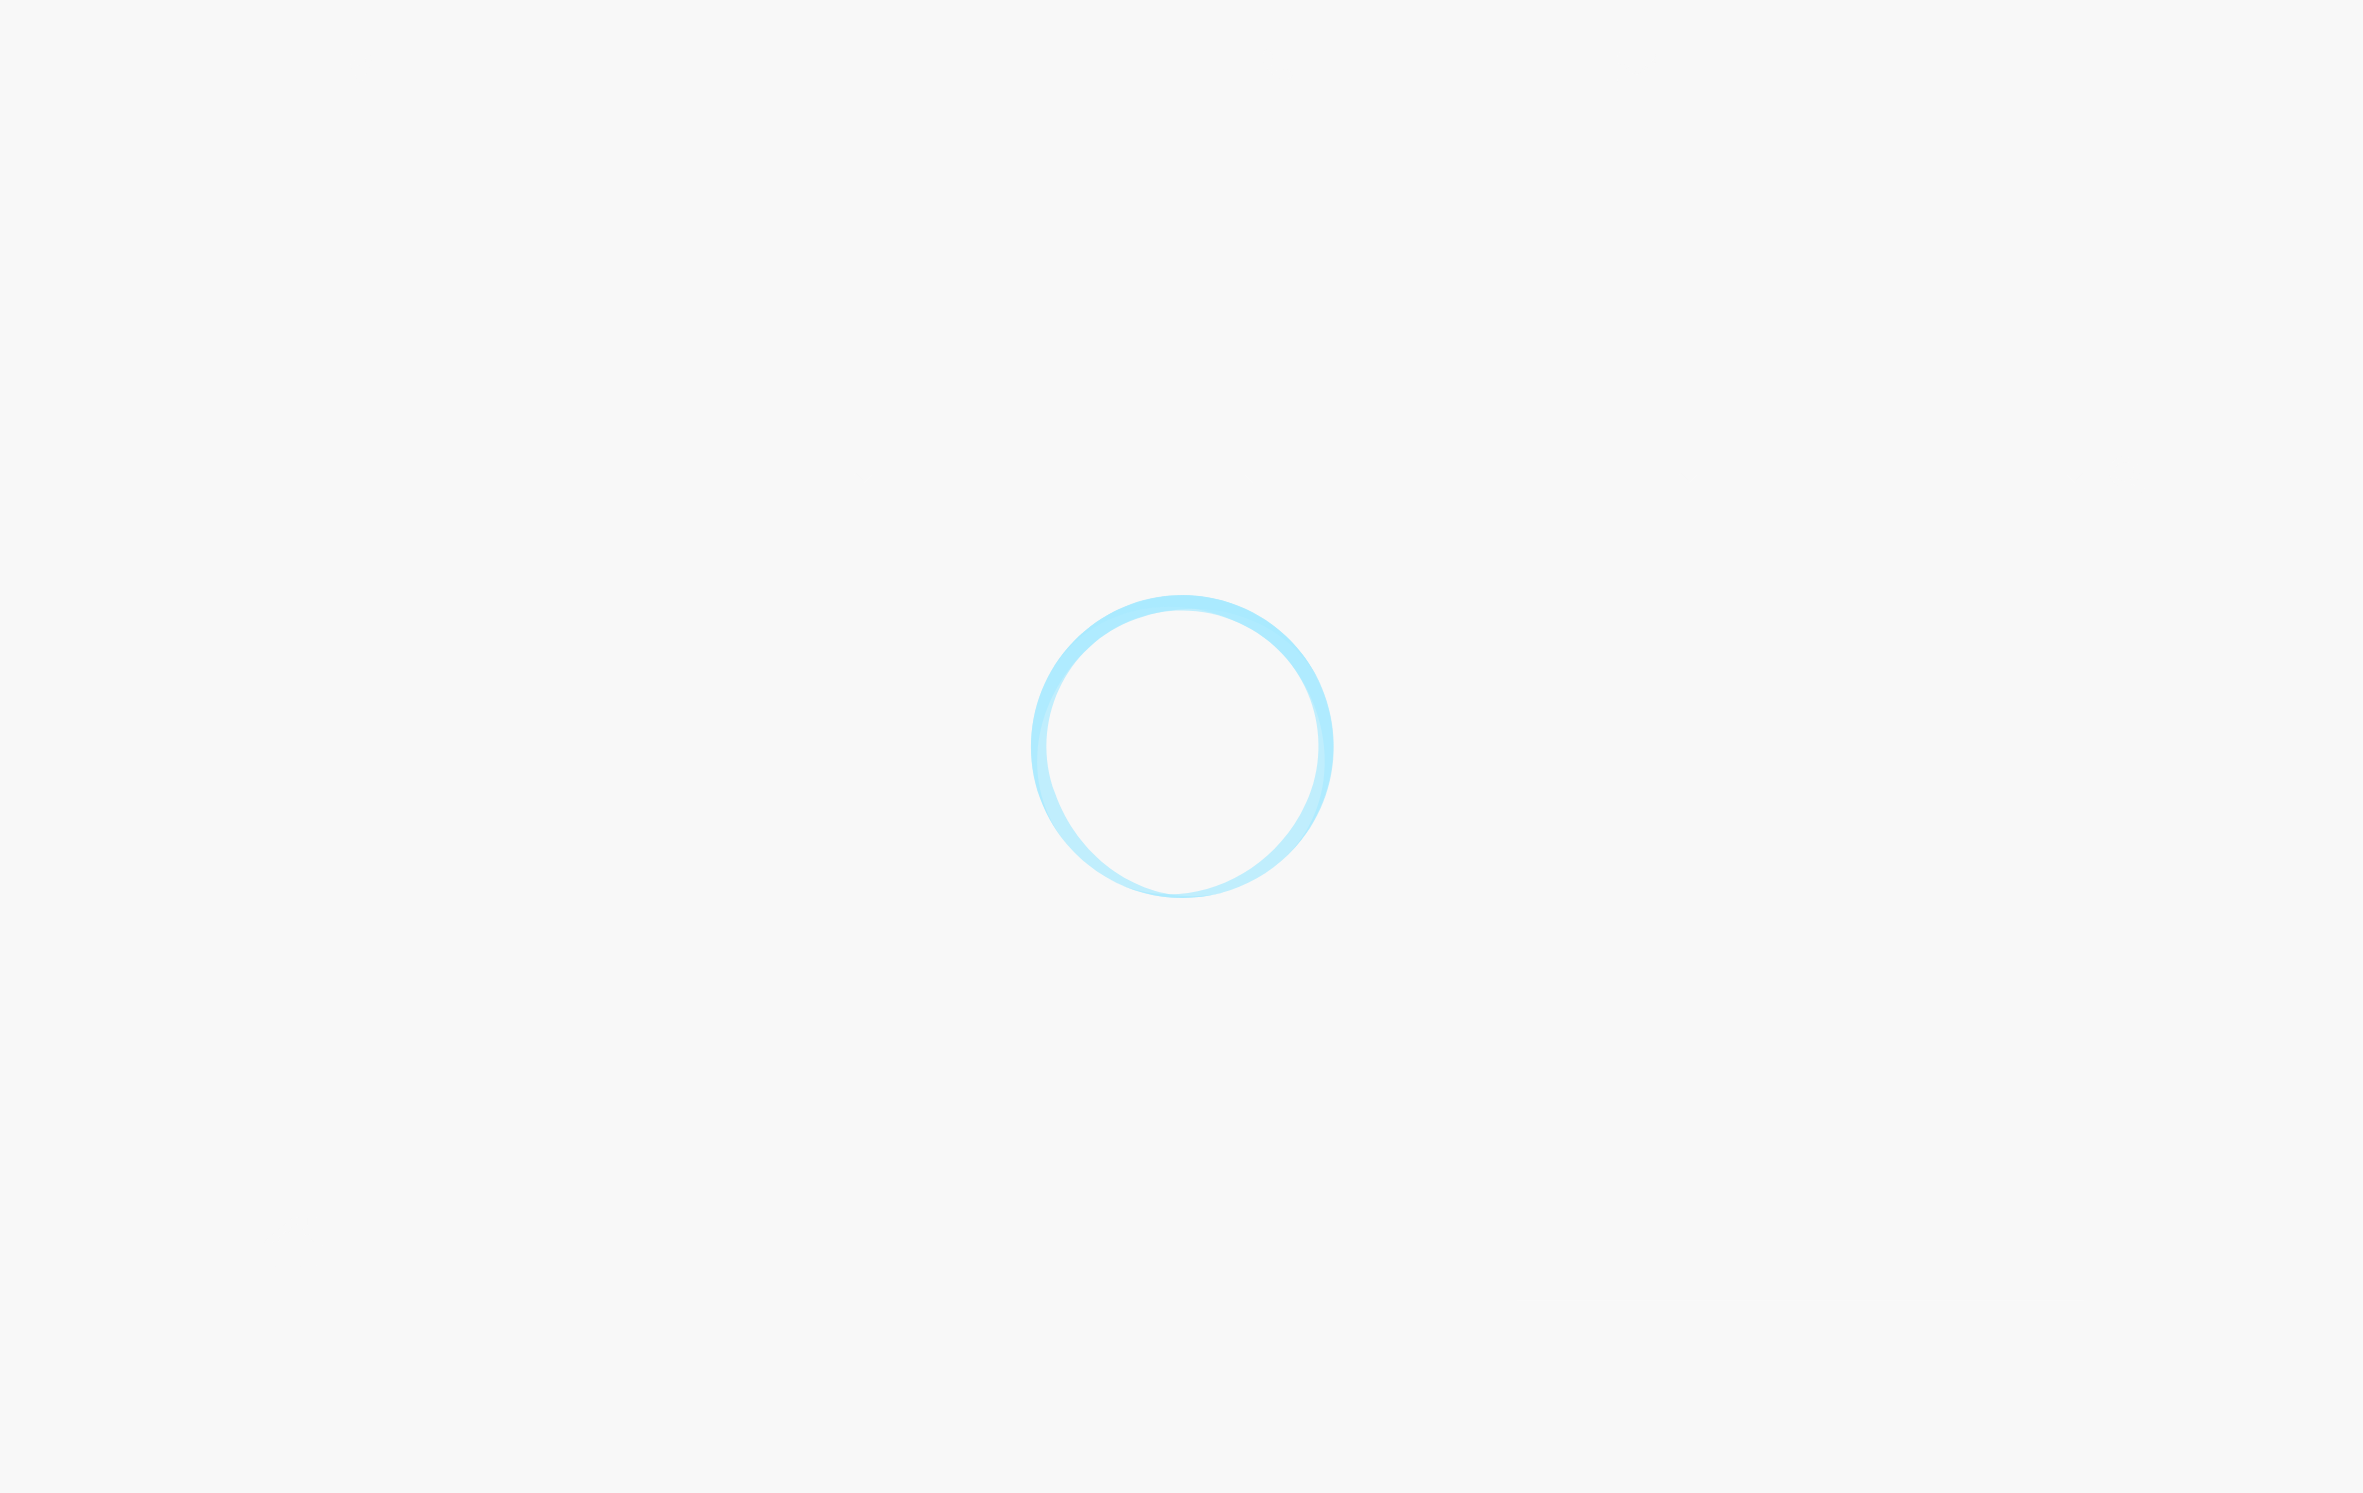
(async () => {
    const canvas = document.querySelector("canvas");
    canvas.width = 2363;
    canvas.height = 1493;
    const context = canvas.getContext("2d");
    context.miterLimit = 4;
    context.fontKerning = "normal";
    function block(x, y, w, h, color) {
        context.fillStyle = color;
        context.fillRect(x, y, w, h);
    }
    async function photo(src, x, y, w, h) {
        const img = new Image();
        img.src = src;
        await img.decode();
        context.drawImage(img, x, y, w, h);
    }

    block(0, 0, 2363, 1493, "rgb(248, 248, 248)");
    await photo("media/1.png", 349, 49, 23, 34);
    await photo("media/2.png", 1262, 49, 31, 31);
    await photo("media/3.png", 1617, 52, 39, 31);
    await photo("media/4.png", 854, 473, 19, 11);
    await photo("media/5.png", 1244, 473, 19, 11);
    await photo("media/4.png", 1679, 473, 19, 11);
    await photo("media/6.png", 2066, 473, 19, 11);
    await photo("media/7.png", 2109, 456, 36, 37);
    await photo("media/8.png", 264, 1217, 63, 50);
    await photo("media/9.png", 1517, 1202, 567, 99);
    context.fillStyle = "rgb(192, 238, 253)";
    context.beginPath();
    context.moveTo(1325, 695);
    context.bezierCurveTo(1353, 773, 1313, 860, 1234, 889);
    context.bezierCurveTo(1156, 917, 1069, 877, 1040, 798);
    context.bezierCurveTo(1012, 720, 1052, 633, 1131, 604);
    context.bezierCurveTo(1209, 576, 1296, 616, 1325, 695);
    context.closePath();
    context.moveTo(1325, 695);
    context.bezierCurveTo(1353, 773, 1313, 860, 1234, 889);
    context.bezierCurveTo(1164, 914, 1083, 872, 1055, 793);
    context.bezierCurveTo(1029, 723, 1065, 644, 1136, 619);
    context.bezierCurveTo(1214, 590, 1299, 624, 1325, 695);
    context.closePath();
    context.fill("evenodd");
    context.fillStyle = "rgba(168, 234, 255, 0.7)";
    context.beginPath();
    context.moveTo(1280, 862);
    context.bezierCurveTo(1216, 916, 1120, 908, 1067, 844);
    context.bezierCurveTo(1013, 780, 1021, 684, 1085, 631);
    context.bezierCurveTo(1149, 577, 1245, 585, 1298, 649);
    context.bezierCurveTo(1352, 713, 1344, 809, 1280, 862);
    context.closePath();
    context.moveTo(1280, 862);
    context.bezierCurveTo(1216, 916, 1120, 908, 1067, 844);
    context.bezierCurveTo(1018, 786, 1031, 696, 1095, 642);
    context.bezierCurveTo(1153, 594, 1238, 602, 1287, 659);
    context.bezierCurveTo(1340, 723, 1337, 814, 1280, 862);
    context.closePath();
    context.fill("evenodd");
    context.beginPath();
    context.moveTo(1107, 878);
    context.bezierCurveTo(1035, 836, 1010, 743, 1052, 671);
    context.bezierCurveTo(1093, 599, 1186, 574, 1258, 616);
    context.bezierCurveTo(1330, 657, 1355, 750, 1313, 822);
    context.bezierCurveTo(1272, 895, 1179, 919, 1107, 878);
    context.closePath();
    context.moveTo(1107, 878);
    context.bezierCurveTo(1035, 836, 1010, 743, 1052, 671);
    context.bezierCurveTo(1089, 606, 1178, 587, 1251, 629);
    context.bezierCurveTo(1316, 666, 1338, 750, 1300, 815);
    context.bezierCurveTo(1259, 887, 1172, 915, 1107, 878);
    context.closePath();
    context.fill("evenodd");
})();
